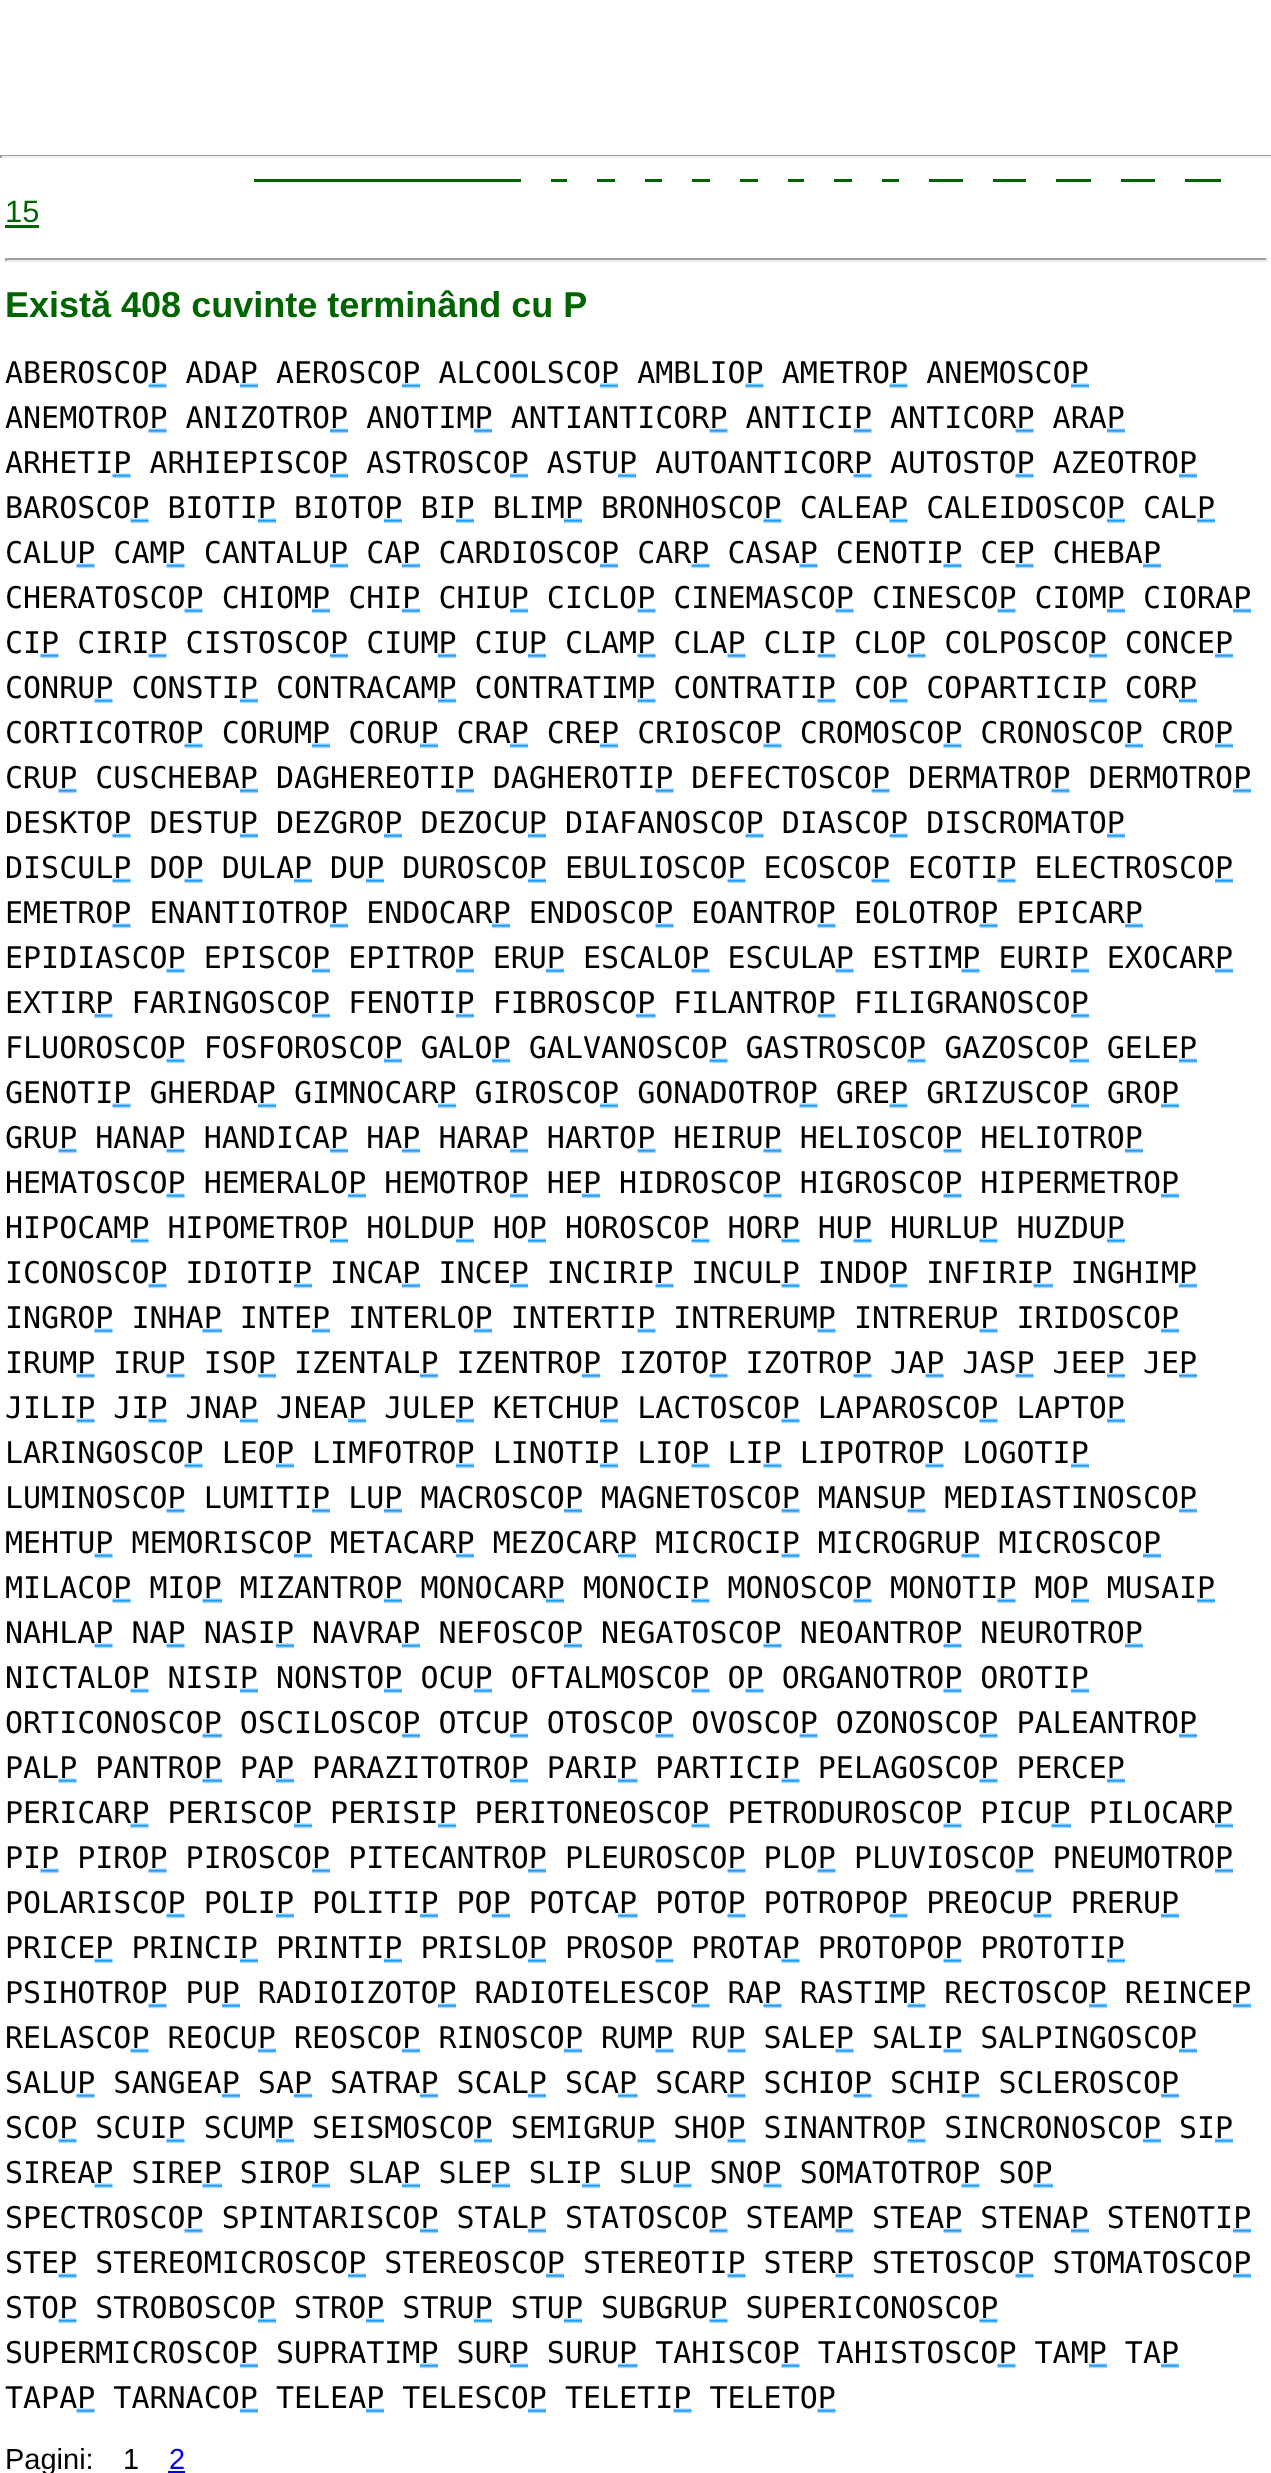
(async () => {
    const canvas = document.querySelector("canvas");
    canvas.width = 1271;
    canvas.height = 2473;
    const context = canvas.getContext("2d");
    context.miterLimit = 4;
    context.fontKerning = "normal";
    function write(s, x, y, font, color) {
        context.font = font;
        context.fillStyle = color;
        context.fillText(s, x, y);
    }
    function block(x, y, w, h, color) {
        context.fillStyle = color;
        context.fillRect(x, y, w, h);
    }
    async function photo(src, x, y, w, h) {
        const img = new Image();
        img.src = src;
        await img.decode();
        context.drawImage(img, x, y, w, h);
    }

    block(0, 0, 1271, 2473, "rgb(255, 255, 255)");
    block(0, 155, 1271, 1, "rgb(159, 159, 159)");
    block(0, 156, 1271, 2, "rgb(238, 238, 238)");
    block(0, 155, 2, 3, "rgb(159, 159, 159)");
    block(254, 179, 267, 3, "rgb(0, 100, 0)");
    block(551, 179, 16, 3, "rgb(0, 100, 0)");
    block(597, 179, 18, 3, "rgb(0, 100, 0)");
    block(645, 179, 17, 3, "rgb(0, 100, 0)");
    block(692, 179, 18, 3, "rgb(0, 100, 0)");
    block(740, 179, 18, 3, "rgb(0, 100, 0)");
    block(788, 179, 16, 3, "rgb(0, 100, 0)");
    block(834, 179, 18, 3, "rgb(0, 100, 0)");
    block(882, 179, 17, 3, "rgb(0, 100, 0)");
    block(929, 179, 34, 3, "rgb(0, 100, 0)");
    block(993, 179, 33, 3, "rgb(0, 100, 0)");
    block(1056, 179, 35, 3, "rgb(0, 100, 0)");
    block(1121, 179, 34, 3, "rgb(0, 100, 0)");
    block(1185, 179, 36, 3, "rgb(0, 100, 0)");
    write("15", 5, 222, "31px Liberation Sans", "rgb(0, 100, 0)");
    block(5, 225, 34, 3, "rgb(0, 100, 0)");
    block(5, 258, 1263, 2, "rgb(159, 159, 159)");
    block(1266, 258, 2, 3, "rgb(238, 238, 238)");
    block(5, 260, 1263, 2, "rgb(238, 238, 238)");
    block(5, 258, 2, 3, "rgb(159, 159, 159)");
    write("Există 408 cuvinte terminând cu P", 5, 317, "bold 36px Liberation Sans", "rgb(0, 100, 0)");
    write("ABEROSCOP ADAP AEROSCOP ALCOOLSCOP AMBLIOP AMETROP ANEMOSCOP", 5, 383, "30px DejaVu Sans Mono", "rgb(0, 0, 0)");
    await photo("media/1.png", 148, 383, 19, 6);
    await photo("media/2.png", 240, 383, 18, 6);
    await photo("media/2.png", 402, 383, 18, 6);
    await photo("media/2.png", 600, 383, 18, 6);
    await photo("media/1.png", 745, 383, 19, 6);
    await photo("media/1.png", 889, 383, 19, 6);
    await photo("media/2.png", 1071, 383, 18, 6);
    write("ANEMOTROP ANIZOTROP ANOTIMP ANTIANTICORP ANTICIP ANTICORP ARAP", 5, 428, "30px DejaVu Sans Mono", "rgb(0, 0, 0)");
    await photo("media/1.png", 148, 428, 19, 6);
    await photo("media/2.png", 330, 428, 18, 6);
    await photo("media/2.png", 474, 428, 18, 6);
    await photo("media/1.png", 709, 428, 19, 6);
    await photo("media/1.png", 853, 428, 19, 6);
    await photo("media/1.png", 1015, 428, 19, 6);
    await photo("media/2.png", 1107, 428, 18, 6);
    write("ARHETIP ARHIEPISCOP ASTROSCOP ASTUP AUTOANTICORP AUTOSTOP AZEOTROP", 5, 473, "30px DejaVu Sans Mono", "rgb(0, 0, 0)");
    await photo("media/1.png", 112, 473, 19, 6);
    await photo("media/2.png", 330, 473, 18, 6);
    await photo("media/2.png", 510, 473, 18, 6);
    await photo("media/2.png", 618, 473, 18, 6);
    await photo("media/1.png", 853, 473, 19, 6);
    await photo("media/1.png", 1015, 473, 19, 6);
    await photo("media/2.png", 1179, 473, 18, 6);
    write("BAROSCOP BIOTIP BIOTOP BIP BLIMP BRONHOSCOP CALEAP CALEIDOSCOP CALP", 5, 518, "30px DejaVu Sans Mono", "rgb(0, 0, 0)");
    await photo("media/3.png", 130, 518, 19, 6);
    await photo("media/4.png", 258, 518, 18, 6);
    await photo("media/4.png", 384, 518, 18, 6);
    await photo("media/4.png", 456, 518, 18, 6);
    await photo("media/4.png", 564, 518, 18, 6);
    await photo("media/3.png", 763, 518, 19, 6);
    await photo("media/3.png", 889, 518, 19, 6);
    await photo("media/4.png", 1107, 518, 18, 6);
    await photo("media/4.png", 1197, 518, 18, 6);
    write("CALUP CAMP CANTALUP CAP CARDIOSCOP CARP CASAP CENOTIP CEP CHEBAP", 5, 563, "30px DejaVu Sans Mono", "rgb(0, 0, 0)");
    await photo("media/5.png", 76, 563, 19, 6);
    await photo("media/5.png", 166, 563, 19, 6);
    await photo("media/6.png", 330, 563, 18, 6);
    await photo("media/6.png", 402, 563, 18, 6);
    await photo("media/6.png", 600, 563, 18, 6);
    await photo("media/5.png", 691, 563, 19, 6);
    await photo("media/5.png", 799, 563, 19, 6);
    await photo("media/5.png", 943, 563, 19, 6);
    await photo("media/5.png", 1015, 563, 19, 6);
    await photo("media/6.png", 1143, 563, 18, 6);
    write("CHERATOSCOP CHIOMP CHIP CHIUP CICLOP CINEMASCOP CINESCOP CIOMP CIORAP", 5, 608, "30px DejaVu Sans Mono", "rgb(0, 0, 0)");
    await photo("media/7.png", 184, 608, 19, 6);
    await photo("media/8.png", 312, 608, 18, 6);
    await photo("media/8.png", 402, 608, 18, 6);
    await photo("media/8.png", 510, 608, 18, 6);
    await photo("media/7.png", 637, 608, 19, 6);
    await photo("media/7.png", 835, 608, 19, 6);
    await photo("media/7.png", 997, 608, 19, 6);
    await photo("media/8.png", 1107, 608, 18, 6);
    await photo("media/8.png", 1233, 608, 18, 6);
    write("CIP CIRIP CISTOSCOP CIUMP CIUP CLAMP CLAP CLIP CLOP COLPOSCOP CONCEP", 5, 653, "30px DejaVu Sans Mono", "rgb(0, 0, 0)");
    await photo("media/7.png", 40, 653, 19, 6);
    await photo("media/7.png", 148, 653, 19, 6);
    await photo("media/8.png", 330, 653, 18, 6);
    await photo("media/8.png", 438, 653, 18, 6);
    await photo("media/8.png", 528, 653, 18, 6);
    await photo("media/7.png", 637, 653, 19, 6);
    await photo("media/7.png", 727, 653, 19, 6);
    await photo("media/7.png", 817, 653, 19, 6);
    await photo("media/7.png", 907, 653, 19, 6);
    await photo("media/8.png", 1089, 653, 18, 6);
    await photo("media/8.png", 1215, 653, 18, 6);
    write("CONRUP CONSTIP CONTRACAMP CONTRATIMP CONTRATIP COP COPARTICIP CORP", 5, 698, "30px DejaVu Sans Mono", "rgb(0, 0, 0)");
    await photo("media/7.png", 94, 698, 19, 6);
    await photo("media/8.png", 240, 698, 18, 6);
    await photo("media/8.png", 438, 698, 18, 6);
    await photo("media/7.png", 637, 698, 19, 6);
    await photo("media/7.png", 817, 698, 19, 6);
    await photo("media/7.png", 889, 698, 19, 6);
    await photo("media/8.png", 1089, 698, 18, 6);
    await photo("media/8.png", 1179, 698, 18, 6);
    write("CORTICOTROP CORUMP CORUP CRAP CREP CRIOSCOP CROMOSCOP CRONOSCOP CROP", 5, 743, "30px DejaVu Sans Mono", "rgb(0, 0, 0)");
    await photo("media/7.png", 184, 743, 19, 6);
    await photo("media/8.png", 312, 743, 18, 6);
    await photo("media/8.png", 420, 743, 18, 6);
    await photo("media/8.png", 510, 743, 18, 6);
    await photo("media/8.png", 600, 743, 18, 6);
    await photo("media/7.png", 763, 743, 19, 6);
    await photo("media/7.png", 943, 743, 19, 6);
    await photo("media/8.png", 1125, 743, 18, 6);
    await photo("media/8.png", 1215, 743, 18, 6);
    write("CRUP CUSCHEBAP DAGHEREOTIP DAGHEROTIP DEFECTOSCOP DERMATROP DERMOTROP", 5, 788, "30px DejaVu Sans Mono", "rgb(0, 0, 0)");
    await photo("media/3.png", 58, 788, 19, 6);
    await photo("media/4.png", 240, 788, 18, 6);
    await photo("media/4.png", 456, 788, 18, 6);
    await photo("media/3.png", 655, 788, 19, 6);
    await photo("media/3.png", 871, 788, 19, 6);
    await photo("media/3.png", 1051, 788, 19, 6);
    await photo("media/4.png", 1233, 788, 18, 6);
    write("DESKTOP DESTUP DEZGROP DEZOCUP DIAFANOSCOP DIASCOP DISCROMATOP", 5, 833, "30px DejaVu Sans Mono", "rgb(0, 0, 0)");
    await photo("media/7.png", 112, 833, 19, 6);
    await photo("media/8.png", 240, 833, 18, 6);
    await photo("media/8.png", 384, 833, 18, 6);
    await photo("media/8.png", 528, 833, 18, 6);
    await photo("media/7.png", 745, 833, 19, 6);
    await photo("media/7.png", 889, 833, 19, 6);
    await photo("media/8.png", 1107, 833, 18, 6);
    write("DISCULP DOP DULAP DUP DUROSCOP EBULIOSCOP ECOSCOP ECOTIP ELECTROSCOP", 5, 878, "30px DejaVu Sans Mono", "rgb(0, 0, 0)");
    await photo("media/9.png", 112, 878, 19, 6);
    await photo("media/9.png", 184, 878, 19, 6);
    await photo("media/10.png", 294, 878, 18, 6);
    await photo("media/10.png", 366, 878, 18, 6);
    await photo("media/10.png", 528, 878, 18, 6);
    await photo("media/9.png", 727, 878, 19, 6);
    await photo("media/9.png", 871, 878, 19, 6);
    await photo("media/9.png", 997, 878, 19, 6);
    await photo("media/10.png", 1215, 878, 18, 6);
    write("EMETROP ENANTIOTROP ENDOCARP ENDOSCOP EOANTROP EOLOTROP EPICARP", 5, 923, "30px DejaVu Sans Mono", "rgb(0, 0, 0)");
    await photo("media/1.png", 112, 923, 19, 6);
    await photo("media/2.png", 330, 923, 18, 6);
    await photo("media/2.png", 492, 923, 18, 6);
    await photo("media/1.png", 655, 923, 19, 6);
    await photo("media/1.png", 817, 923, 19, 6);
    await photo("media/1.png", 979, 923, 19, 6);
    await photo("media/2.png", 1125, 923, 18, 6);
    write("EPIDIASCOP EPISCOP EPITROP ERUP ESCALOP ESCULAP ESTIMP EURIP EXOCARP", 5, 968, "30px DejaVu Sans Mono", "rgb(0, 0, 0)");
    await photo("media/7.png", 166, 968, 19, 6);
    await photo("media/8.png", 312, 968, 18, 6);
    await photo("media/8.png", 456, 968, 18, 6);
    await photo("media/8.png", 546, 968, 18, 6);
    await photo("media/7.png", 691, 968, 19, 6);
    await photo("media/7.png", 835, 968, 19, 6);
    await photo("media/7.png", 961, 968, 19, 6);
    await photo("media/8.png", 1071, 968, 18, 6);
    await photo("media/8.png", 1215, 968, 18, 6);
    write("EXTIRP FARINGOSCOP FENOTIP FIBROSCOP FILANTROP FILIGRANOSCOP", 5, 1013, "30px DejaVu Sans Mono", "rgb(0, 0, 0)");
    await photo("media/1.png", 94, 1013, 19, 6);
    await photo("media/2.png", 312, 1013, 18, 6);
    await photo("media/2.png", 456, 1013, 18, 6);
    await photo("media/11.png", 636, 1013, 20, 6);
    await photo("media/1.png", 817, 1013, 19, 6);
    await photo("media/2.png", 1071, 1013, 18, 6);
    write("FLUOROSCOP FOSFOROSCOP GALOP GALVANOSCOP GASTROSCOP GAZOSCOP GELEP", 5, 1058, "30px DejaVu Sans Mono", "rgb(0, 0, 0)");
    await photo("media/1.png", 166, 1058, 19, 6);
    await photo("media/2.png", 384, 1058, 18, 6);
    await photo("media/2.png", 492, 1058, 18, 6);
    await photo("media/1.png", 709, 1058, 19, 6);
    await photo("media/1.png", 907, 1058, 19, 6);
    await photo("media/12.png", 1069, 1058, 20, 6);
    await photo("media/2.png", 1179, 1058, 18, 6);
    write("GENOTIP GHERDAP GIMNOCARP GIROSCOP GONADOTROP GREP GRIZUSCOP GROP", 5, 1103, "30px DejaVu Sans Mono", "rgb(0, 0, 0)");
    await photo("media/1.png", 112, 1103, 19, 6);
    await photo("media/2.png", 258, 1103, 18, 6);
    await photo("media/2.png", 438, 1103, 18, 6);
    await photo("media/2.png", 600, 1103, 18, 6);
    await photo("media/1.png", 799, 1103, 19, 6);
    await photo("media/1.png", 889, 1103, 19, 6);
    await photo("media/2.png", 1071, 1103, 18, 6);
    await photo("media/2.png", 1161, 1103, 18, 6);
    write("GRUP HANAP HANDICAP HAP HARAP HARTOP HEIRUP HELIOSCOP HELIOTROP", 5, 1148, "30px DejaVu Sans Mono", "rgb(0, 0, 0)");
    await photo("media/1.png", 58, 1148, 19, 6);
    await photo("media/1.png", 166, 1148, 19, 6);
    await photo("media/2.png", 330, 1148, 18, 6);
    await photo("media/2.png", 402, 1148, 18, 6);
    await photo("media/2.png", 510, 1148, 18, 6);
    await photo("media/1.png", 637, 1148, 19, 6);
    await photo("media/1.png", 763, 1148, 19, 6);
    await photo("media/1.png", 943, 1148, 19, 6);
    await photo("media/2.png", 1125, 1148, 18, 6);
    write("HEMATOSCOP HEMERALOP HEMOTROP HEP HIDROSCOP HIGROSCOP HIPERMETROP", 5, 1193, "30px DejaVu Sans Mono", "rgb(0, 0, 0)");
    await photo("media/1.png", 166, 1193, 19, 6);
    await photo("media/2.png", 348, 1193, 18, 6);
    await photo("media/2.png", 510, 1193, 18, 6);
    await photo("media/2.png", 582, 1193, 18, 6);
    await photo("media/1.png", 763, 1193, 19, 6);
    await photo("media/1.png", 943, 1193, 19, 6);
    await photo("media/2.png", 1161, 1193, 18, 6);
    write("HIPOCAMP HIPOMETROP HOLDUP HOP HOROSCOP HORP HUP HURLUP HUZDUP", 5, 1238, "30px DejaVu Sans Mono", "rgb(0, 0, 0)");
    await photo("media/1.png", 130, 1238, 19, 6);
    await photo("media/2.png", 330, 1238, 18, 6);
    await photo("media/2.png", 456, 1238, 18, 6);
    await photo("media/2.png", 528, 1238, 18, 6);
    await photo("media/1.png", 691, 1238, 19, 6);
    await photo("media/1.png", 781, 1238, 19, 6);
    await photo("media/1.png", 853, 1238, 19, 6);
    await photo("media/1.png", 979, 1238, 19, 6);
    await photo("media/2.png", 1107, 1238, 18, 6);
    write("ICONOSCOP IDIOTIP INCAP INCEP INCIRIP INCULP INDOP INFIRIP INGHIMP", 5, 1283, "30px DejaVu Sans Mono", "rgb(0, 0, 0)");
    await photo("media/1.png", 148, 1283, 19, 6);
    await photo("media/2.png", 294, 1283, 18, 6);
    await photo("media/2.png", 402, 1283, 18, 6);
    await photo("media/2.png", 510, 1283, 18, 6);
    await photo("media/1.png", 655, 1283, 19, 6);
    await photo("media/1.png", 781, 1283, 19, 6);
    await photo("media/1.png", 889, 1283, 19, 6);
    await photo("media/12.png", 1033, 1283, 20, 6);
    await photo("media/2.png", 1179, 1283, 18, 6);
    write("INGROP INHAP INTEP INTERLOP INTERTIP INTRERUMP INTRERUP IRIDOSCOP", 5, 1328, "30px DejaVu Sans Mono", "rgb(0, 0, 0)");
    await photo("media/3.png", 94, 1328, 19, 6);
    await photo("media/13.png", 202, 1328, 20, 6);
    await photo("media/4.png", 312, 1328, 18, 6);
    await photo("media/4.png", 474, 1328, 18, 6);
    await photo("media/3.png", 637, 1328, 19, 6);
    await photo("media/3.png", 817, 1328, 19, 6);
    await photo("media/3.png", 979, 1328, 19, 6);
    await photo("media/4.png", 1161, 1328, 18, 6);
    write("IRUMP IRUP ISOP IZENTALP IZENTROP IZOTOP IZOTROP JAP JASP JEEP JEP", 5, 1373, "30px DejaVu Sans Mono", "rgb(0, 0, 0)");
    await photo("media/7.png", 76, 1373, 19, 6);
    await photo("media/7.png", 166, 1373, 19, 6);
    await photo("media/8.png", 258, 1373, 18, 6);
    await photo("media/8.png", 420, 1373, 18, 6);
    await photo("media/8.png", 582, 1373, 18, 6);
    await photo("media/7.png", 709, 1373, 19, 6);
    await photo("media/7.png", 853, 1373, 19, 6);
    await photo("media/7.png", 925, 1373, 19, 6);
    await photo("media/7.png", 1015, 1373, 19, 6);
    await photo("media/8.png", 1107, 1373, 18, 6);
    await photo("media/8.png", 1179, 1373, 18, 6);
    write("JILIP JIP JNAP JNEAP JULEP KETCHUP LACTOSCOP LAPAROSCOP LAPTOP", 5, 1418, "30px DejaVu Sans Mono", "rgb(0, 0, 0)");
    await photo("media/7.png", 76, 1418, 19, 6);
    await photo("media/7.png", 148, 1418, 19, 6);
    await photo("media/8.png", 240, 1418, 18, 6);
    await photo("media/8.png", 348, 1418, 18, 6);
    await photo("media/8.png", 456, 1418, 18, 6);
    await photo("media/8.png", 600, 1418, 18, 6);
    await photo("media/7.png", 781, 1418, 19, 6);
    await photo("media/7.png", 979, 1418, 19, 6);
    await photo("media/8.png", 1107, 1418, 18, 6);
    write("LARINGOSCOP LEOP LIMFOTROP LINOTIP LIOP LIP LIPOTROP LOGOTIP", 5, 1463, "30px DejaVu Sans Mono", "rgb(0, 0, 0)");
    await photo("media/7.png", 184, 1463, 19, 6);
    await photo("media/8.png", 276, 1463, 18, 6);
    await photo("media/8.png", 456, 1463, 18, 6);
    await photo("media/8.png", 600, 1463, 18, 6);
    await photo("media/7.png", 691, 1463, 19, 6);
    await photo("media/7.png", 763, 1463, 19, 6);
    await photo("media/7.png", 925, 1463, 19, 6);
    await photo("media/8.png", 1071, 1463, 18, 6);
    write("LUMINOSCOP LUMITIP LUP MACROSCOP MAGNETOSCOP MANSUP MEDIASTINOSCOP", 5, 1508, "30px DejaVu Sans Mono", "rgb(0, 0, 0)");
    await photo("media/7.png", 166, 1508, 19, 6);
    await photo("media/8.png", 312, 1508, 18, 6);
    await photo("media/8.png", 384, 1508, 18, 6);
    await photo("media/8.png", 564, 1508, 18, 6);
    await photo("media/7.png", 781, 1508, 19, 6);
    await photo("media/7.png", 907, 1508, 19, 6);
    await photo("media/8.png", 1179, 1508, 18, 6);
    write("MEHTUP MEMORISCOP METACARP MEZOCARP MICROCIP MICROGRUP MICROSCOP", 5, 1553, "30px DejaVu Sans Mono", "rgb(0, 0, 0)");
    await photo("media/1.png", 94, 1553, 19, 6);
    await photo("media/2.png", 294, 1553, 18, 6);
    await photo("media/2.png", 456, 1553, 18, 6);
    await photo("media/2.png", 618, 1553, 18, 6);
    await photo("media/1.png", 781, 1553, 19, 6);
    await photo("media/1.png", 961, 1553, 19, 6);
    await photo("media/2.png", 1143, 1553, 18, 6);
    write("MILACOP MIOP MIZANTROP MONOCARP MONOCIP MONOSCOP MONOTIP MOP MUSAIP", 5, 1598, "30px DejaVu Sans Mono", "rgb(0, 0, 0)");
    await photo("media/7.png", 112, 1598, 19, 6);
    await photo("media/14.png", 202, 1598, 20, 6);
    await photo("media/8.png", 384, 1598, 18, 6);
    await photo("media/8.png", 546, 1598, 18, 6);
    await photo("media/7.png", 691, 1598, 19, 6);
    await photo("media/7.png", 853, 1598, 19, 6);
    await photo("media/7.png", 997, 1598, 19, 6);
    await photo("media/8.png", 1071, 1598, 18, 6);
    await photo("media/8.png", 1197, 1598, 18, 6);
    write("NAHLAP NAP NASIP NAVRAP NEFOSCOP NEGATOSCOP NEOANTROP NEUROTROP", 5, 1643, "30px DejaVu Sans Mono", "rgb(0, 0, 0)");
    await photo("media/5.png", 94, 1643, 19, 6);
    await photo("media/5.png", 166, 1643, 19, 6);
    await photo("media/6.png", 276, 1643, 18, 6);
    await photo("media/6.png", 402, 1643, 18, 6);
    await photo("media/6.png", 564, 1643, 18, 6);
    await photo("media/5.png", 763, 1643, 19, 6);
    await photo("media/5.png", 943, 1643, 19, 6);
    await photo("media/6.png", 1125, 1643, 18, 6);
    write("NICTALOP NISIP NONSTOP OCUP OFTALMOSCOP OP ORGANOTROP OROTIP", 5, 1688, "30px DejaVu Sans Mono", "rgb(0, 0, 0)");
    await photo("media/1.png", 130, 1688, 19, 6);
    await photo("media/2.png", 240, 1688, 18, 6);
    await photo("media/2.png", 384, 1688, 18, 6);
    await photo("media/2.png", 474, 1688, 18, 6);
    await photo("media/1.png", 691, 1688, 19, 6);
    await photo("media/1.png", 745, 1688, 19, 6);
    await photo("media/1.png", 943, 1688, 19, 6);
    await photo("media/2.png", 1071, 1688, 18, 6);
    write("ORTICONOSCOP OSCILOSCOP OTCUP OTOSCOP OVOSCOP OZONOSCOP PALEANTROP", 5, 1733, "30px DejaVu Sans Mono", "rgb(0, 0, 0)");
    await photo("media/14.png", 202, 1733, 20, 6);
    await photo("media/8.png", 402, 1733, 18, 6);
    await photo("media/8.png", 510, 1733, 18, 6);
    await photo("media/7.png", 655, 1733, 19, 6);
    await photo("media/7.png", 799, 1733, 19, 6);
    await photo("media/7.png", 979, 1733, 19, 6);
    await photo("media/8.png", 1179, 1733, 18, 6);
    write("PALP PANTROP PAP PARAZITOTROP PARIP PARTICIP PELAGOSCOP PERCEP", 5, 1778, "30px DejaVu Sans Mono", "rgb(0, 0, 0)");
    await photo("media/1.png", 58, 1778, 19, 6);
    await photo("media/12.png", 202, 1778, 20, 6);
    await photo("media/2.png", 276, 1778, 18, 6);
    await photo("media/2.png", 510, 1778, 18, 6);
    await photo("media/11.png", 618, 1778, 20, 6);
    await photo("media/1.png", 781, 1778, 19, 6);
    await photo("media/1.png", 979, 1778, 19, 6);
    await photo("media/2.png", 1107, 1778, 18, 6);
    write("PERICARP PERISCOP PERISIP PERITONEOSCOP PETRODUROSCOP PICUP PILOCARP", 5, 1823, "30px DejaVu Sans Mono", "rgb(0, 0, 0)");
    await photo("media/1.png", 130, 1823, 19, 6);
    await photo("media/2.png", 294, 1823, 18, 6);
    await photo("media/2.png", 438, 1823, 18, 6);
    await photo("media/1.png", 691, 1823, 19, 6);
    await photo("media/1.png", 943, 1823, 19, 6);
    await photo("media/12.png", 1051, 1823, 20, 6);
    await photo("media/2.png", 1215, 1823, 18, 6);
    write("PIP PIROP PIROSCOP PITECANTROP PLEUROSCOP PLOP PLUVIOSCOP PNEUMOTROP", 5, 1868, "30px DejaVu Sans Mono", "rgb(0, 0, 0)");
    await photo("media/1.png", 40, 1868, 19, 6);
    await photo("media/1.png", 148, 1868, 19, 6);
    await photo("media/2.png", 312, 1868, 18, 6);
    await photo("media/2.png", 528, 1868, 18, 6);
    await photo("media/1.png", 727, 1868, 19, 6);
    await photo("media/1.png", 817, 1868, 19, 6);
    await photo("media/1.png", 1015, 1868, 19, 6);
    await photo("media/2.png", 1215, 1868, 18, 6);
    write("POLARISCOP POLIP POLITIP POP POTCAP POTOP POTROPOP PREOCUP PRERUP", 5, 1913, "30px DejaVu Sans Mono", "rgb(0, 0, 0)");
    await photo("media/1.png", 166, 1913, 19, 6);
    await photo("media/2.png", 276, 1913, 18, 6);
    await photo("media/2.png", 420, 1913, 18, 6);
    await photo("media/2.png", 492, 1913, 18, 6);
    await photo("media/11.png", 618, 1913, 20, 6);
    await photo("media/1.png", 727, 1913, 19, 6);
    await photo("media/1.png", 889, 1913, 19, 6);
    await photo("media/1.png", 1033, 1913, 19, 6);
    await photo("media/2.png", 1161, 1913, 18, 6);
    write("PRICEP PRINCIP PRINTIP PRISLOP PROSOP PROTAP PROTOPOP PROTOTIP", 5, 1958, "30px DejaVu Sans Mono", "rgb(0, 0, 0)");
    await photo("media/1.png", 94, 1958, 19, 6);
    await photo("media/2.png", 240, 1958, 18, 6);
    await photo("media/2.png", 384, 1958, 18, 6);
    await photo("media/2.png", 528, 1958, 18, 6);
    await photo("media/1.png", 655, 1958, 19, 6);
    await photo("media/1.png", 781, 1958, 19, 6);
    await photo("media/1.png", 943, 1958, 19, 6);
    await photo("media/2.png", 1107, 1958, 18, 6);
    write("PSIHOTROP PUP RADIOIZOTOP RADIOTELESCOP RAP RASTIMP RECTOSCOP REINCEP", 5, 2003, "30px DejaVu Sans Mono", "rgb(0, 0, 0)");
    await photo("media/1.png", 148, 2003, 19, 6);
    await photo("media/2.png", 222, 2003, 18, 6);
    await photo("media/2.png", 438, 2003, 18, 6);
    await photo("media/1.png", 691, 2003, 19, 6);
    await photo("media/1.png", 763, 2003, 19, 6);
    await photo("media/1.png", 907, 2003, 19, 6);
    await photo("media/2.png", 1089, 2003, 18, 6);
    await photo("media/2.png", 1233, 2003, 18, 6);
    write("RELASCOP REOCUP REOSCOP RINOSCOP RUMP RUP SALEP SALIP SALPINGOSCOP", 5, 2048, "30px DejaVu Sans Mono", "rgb(0, 0, 0)");
    await photo("media/1.png", 130, 2048, 19, 6);
    await photo("media/2.png", 258, 2048, 18, 6);
    await photo("media/2.png", 402, 2048, 18, 6);
    await photo("media/2.png", 564, 2048, 18, 6);
    await photo("media/1.png", 655, 2048, 19, 6);
    await photo("media/1.png", 727, 2048, 19, 6);
    await photo("media/1.png", 835, 2048, 19, 6);
    await photo("media/1.png", 943, 2048, 19, 6);
    await photo("media/2.png", 1179, 2048, 18, 6);
    write("SALUP SANGEAP SAP SATRAP SCALP SCAP SCARP SCHIOP SCHIP SCLEROSCOP", 5, 2093, "30px DejaVu Sans Mono", "rgb(0, 0, 0)");
    await photo("media/1.png", 76, 2093, 19, 6);
    await photo("media/2.png", 222, 2093, 18, 6);
    await photo("media/2.png", 294, 2093, 18, 6);
    await photo("media/2.png", 420, 2093, 18, 6);
    await photo("media/2.png", 528, 2093, 18, 6);
    await photo("media/11.png", 618, 2093, 20, 6);
    await photo("media/1.png", 727, 2093, 19, 6);
    await photo("media/1.png", 853, 2093, 19, 6);
    await photo("media/1.png", 961, 2093, 19, 6);
    await photo("media/2.png", 1161, 2093, 18, 6);
    write("SCOP SCUIP SCUMP SEISMOSCOP SEMIGRUP SHOP SINANTROP SINCRONOSCOP SIP", 5, 2138, "30px DejaVu Sans Mono", "rgb(0, 0, 0)");
    await photo("media/7.png", 58, 2138, 19, 6);
    await photo("media/7.png", 166, 2138, 19, 6);
    await photo("media/8.png", 276, 2138, 18, 6);
    await photo("media/8.png", 474, 2138, 18, 6);
    await photo("media/7.png", 637, 2138, 19, 6);
    await photo("media/7.png", 727, 2138, 19, 6);
    await photo("media/7.png", 907, 2138, 19, 6);
    await photo("media/8.png", 1143, 2138, 18, 6);
    await photo("media/8.png", 1215, 2138, 18, 6);
    write("SIREAP SIREP SIROP SLAP SLEP SLIP SLUP SNOP SOMATOTROP SOP", 5, 2183, "30px DejaVu Sans Mono", "rgb(0, 0, 0)");
    await photo("media/7.png", 94, 2183, 19, 6);
    await photo("media/14.png", 202, 2183, 20, 6);
    await photo("media/8.png", 312, 2183, 18, 6);
    await photo("media/8.png", 402, 2183, 18, 6);
    await photo("media/8.png", 492, 2183, 18, 6);
    await photo("media/8.png", 582, 2183, 18, 6);
    await photo("media/7.png", 673, 2183, 19, 6);
    await photo("media/7.png", 763, 2183, 19, 6);
    await photo("media/7.png", 961, 2183, 19, 6);
    await photo("media/14.png", 1033, 2183, 20, 6);
    write("SPECTROSCOP SPINTARISCOP STALP STATOSCOP STEAMP STEAP STENAP STENOTIP", 5, 2228, "30px DejaVu Sans Mono", "rgb(0, 0, 0)");
    await photo("media/7.png", 184, 2228, 19, 6);
    await photo("media/8.png", 420, 2228, 18, 6);
    await photo("media/8.png", 528, 2228, 18, 6);
    await photo("media/7.png", 709, 2228, 19, 6);
    await photo("media/7.png", 835, 2228, 19, 6);
    await photo("media/7.png", 943, 2228, 19, 6);
    await photo("media/8.png", 1071, 2228, 18, 6);
    await photo("media/8.png", 1233, 2228, 18, 6);
    write("STEP STEREOMICROSCOP STEREOSCOP STEREOTIP STERP STETOSCOP STOMATOSCOP", 5, 2273, "30px DejaVu Sans Mono", "rgb(0, 0, 0)");
    await photo("media/7.png", 58, 2273, 19, 6);
    await photo("media/8.png", 348, 2273, 18, 6);
    await photo("media/8.png", 546, 2273, 18, 6);
    await photo("media/7.png", 727, 2273, 19, 6);
    await photo("media/7.png", 835, 2273, 19, 6);
    await photo("media/7.png", 1015, 2273, 19, 6);
    await photo("media/8.png", 1233, 2273, 18, 6);
    write("STOP STROBOSCOP STROP STRUP STUP SUBGRUP SUPERICONOSCOP", 5, 2318, "30px DejaVu Sans Mono", "rgb(0, 0, 0)");
    await photo("media/1.png", 58, 2318, 19, 6);
    await photo("media/2.png", 258, 2318, 18, 6);
    await photo("media/2.png", 366, 2318, 18, 6);
    await photo("media/2.png", 474, 2318, 18, 6);
    await photo("media/2.png", 564, 2318, 18, 6);
    await photo("media/1.png", 709, 2318, 19, 6);
    await photo("media/1.png", 979, 2318, 19, 6);
    write("SUPERMICROSCOP SUPRATIMP SURP SURUP TAHISCOP TAHISTOSCOP TAMP TAP", 5, 2363, "30px DejaVu Sans Mono", "rgb(0, 0, 0)");
    await photo("media/8.png", 240, 2363, 18, 6);
    await photo("media/8.png", 420, 2363, 18, 6);
    await photo("media/8.png", 510, 2363, 18, 6);
    await photo("media/15.png", 618, 2363, 20, 6);
    await photo("media/7.png", 781, 2363, 19, 6);
    await photo("media/7.png", 997, 2363, 19, 6);
    await photo("media/8.png", 1089, 2363, 18, 6);
    await photo("media/8.png", 1161, 2363, 18, 6);
    write("TAPAP TARNACOP TELEAP TELESCOP TELETIP TELETOP", 5, 2408, "30px DejaVu Sans Mono", "rgb(0, 0, 0)");
    await photo("media/3.png", 76, 2408, 19, 6);
    await photo("media/4.png", 240, 2408, 18, 6);
    await photo("media/4.png", 366, 2408, 18, 6);
    await photo("media/4.png", 528, 2408, 18, 6);
    await photo("media/3.png", 673, 2408, 19, 6);
    await photo("media/3.png", 817, 2408, 19, 6);
    write("Pagini:", 5, 2469, "29px Liberation Sans", "rgb(0, 0, 0)");
    write("1", 123, 2469, "29px Liberation Sans", "rgb(0, 0, 0)");
    write("2", 169, 2469, "29px Liberation Sans", "rgb(0, 0, 238)");
    block(168, 2471, 17, 2, "rgb(0, 0, 238)");
})();
